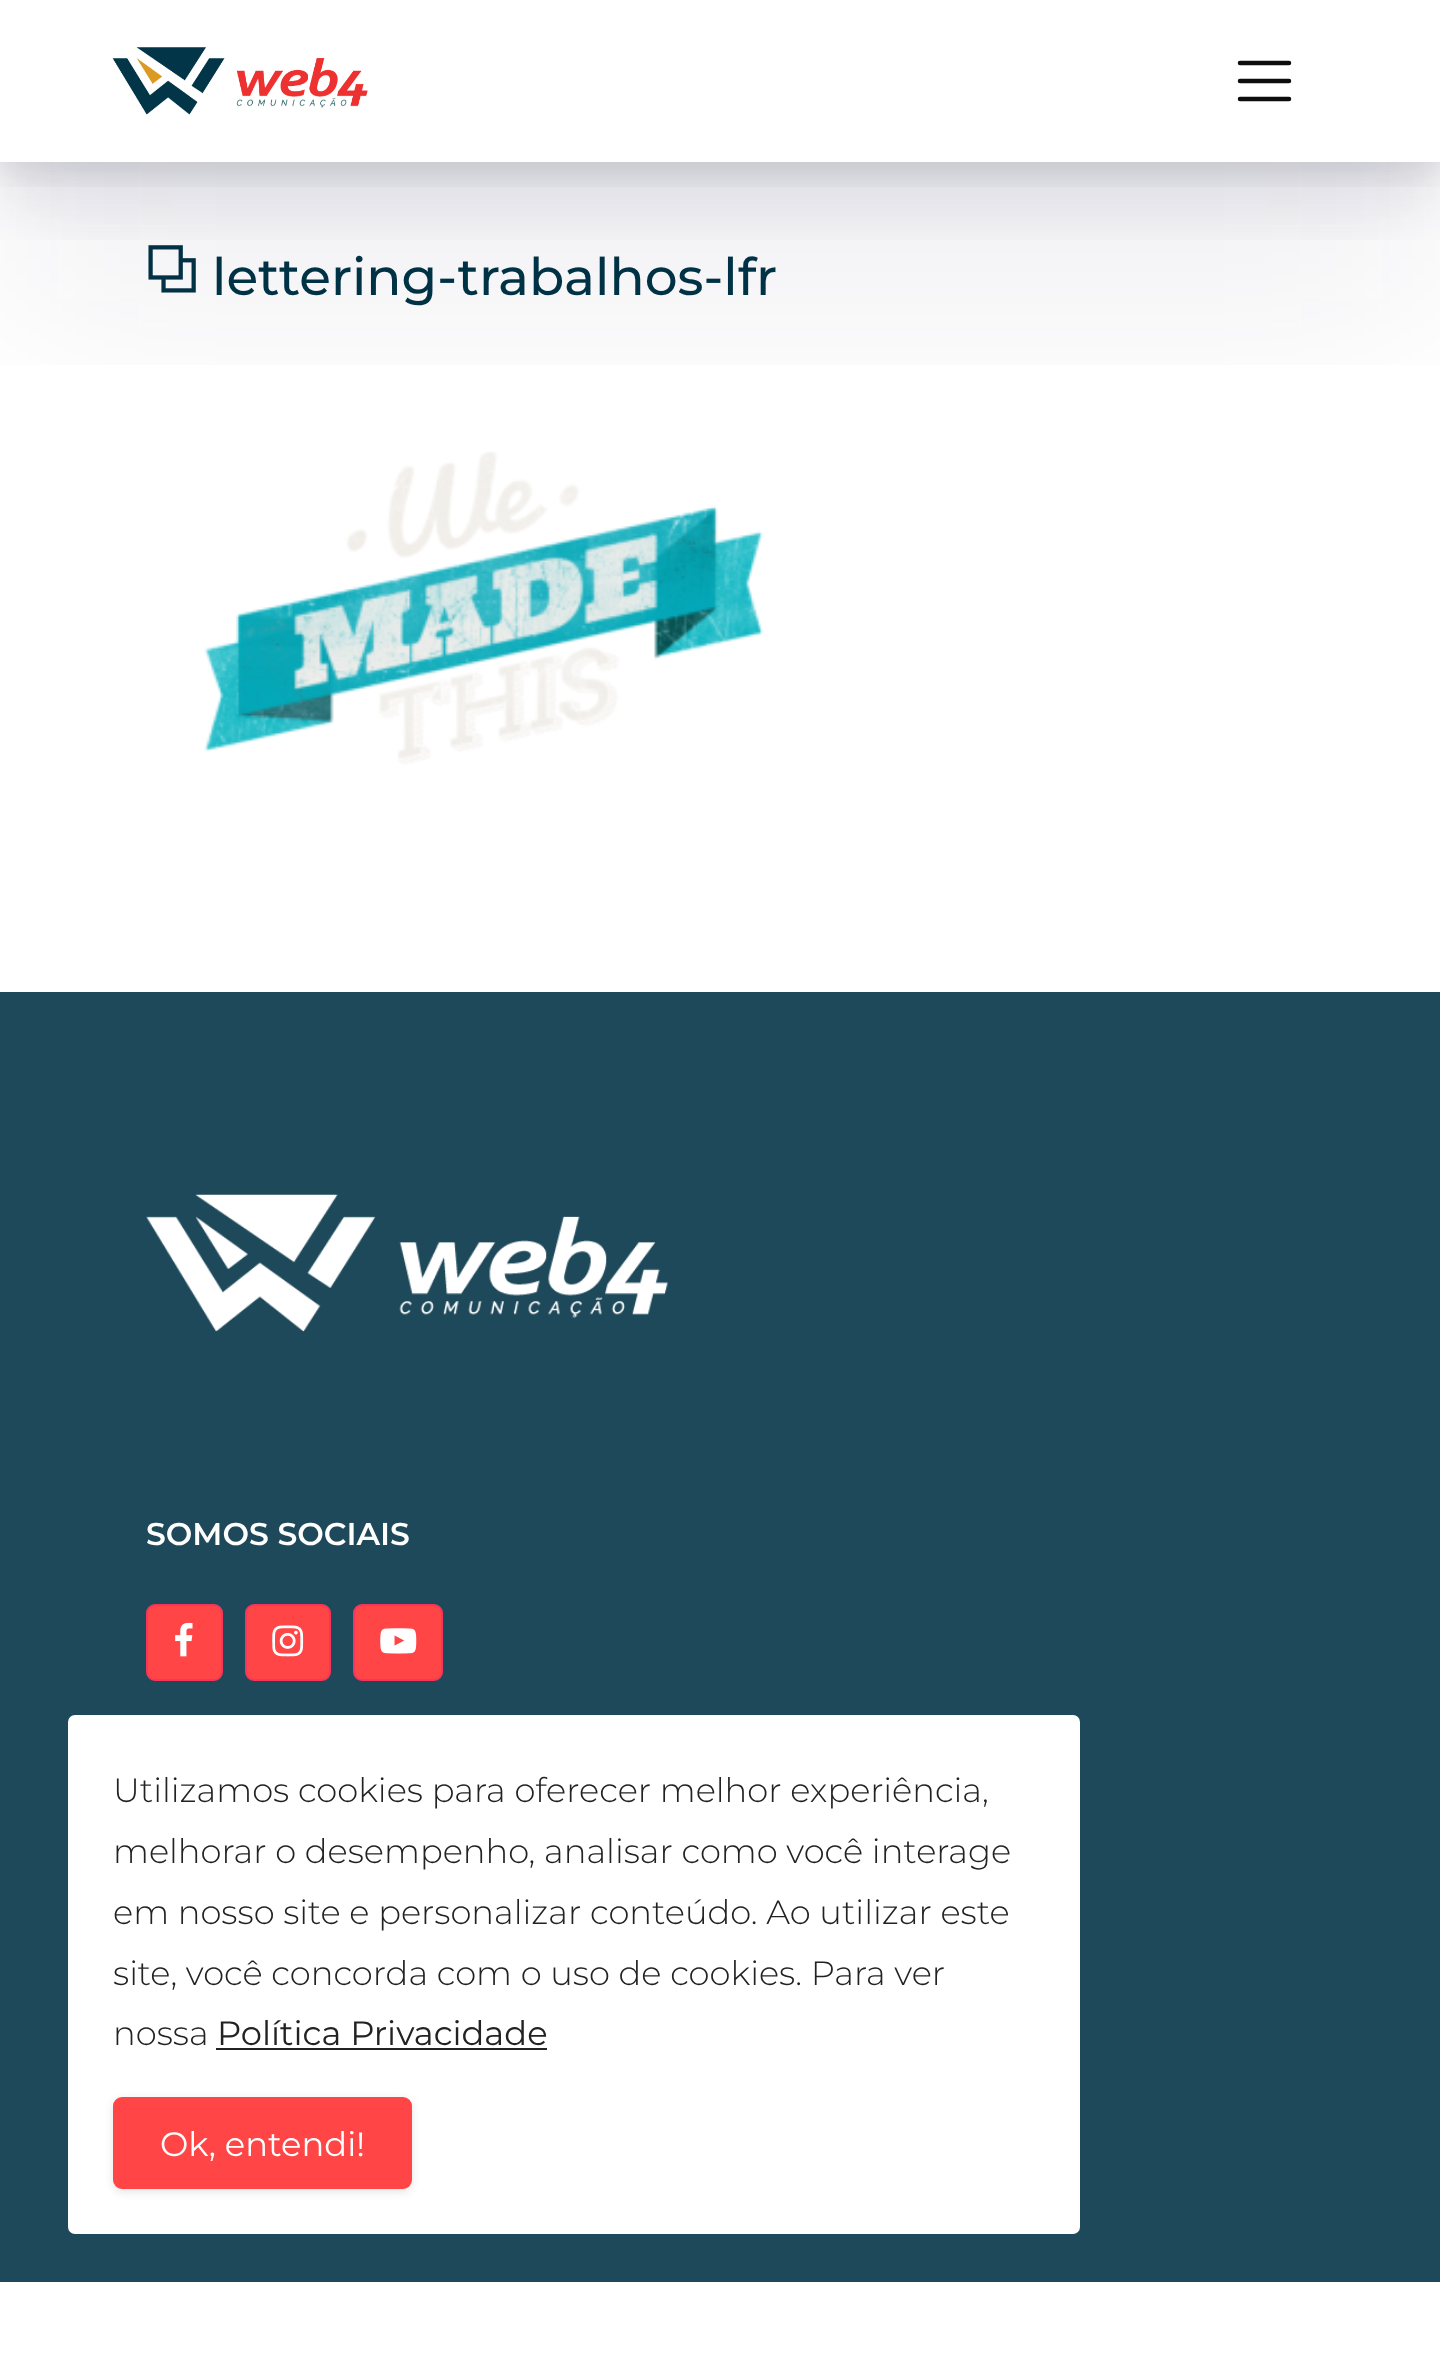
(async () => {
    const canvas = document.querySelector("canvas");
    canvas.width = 1440;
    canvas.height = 2369;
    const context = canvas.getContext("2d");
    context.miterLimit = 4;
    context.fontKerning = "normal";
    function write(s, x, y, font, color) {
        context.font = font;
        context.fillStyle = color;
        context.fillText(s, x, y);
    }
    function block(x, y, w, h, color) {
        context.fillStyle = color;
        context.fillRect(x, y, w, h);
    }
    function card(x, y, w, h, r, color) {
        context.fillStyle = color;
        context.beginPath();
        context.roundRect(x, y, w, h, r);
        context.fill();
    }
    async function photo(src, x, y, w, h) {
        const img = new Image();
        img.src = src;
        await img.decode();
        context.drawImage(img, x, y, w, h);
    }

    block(0, 0, 1440, 2369, "rgb(255, 255, 255)");
    context.save();
    context.beginPath();
    context.rect(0, 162, 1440, 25);
    context.clip();
    context.fillStyle = "rgba(0, 0, 0, 0.1)";
    context.filter = "blur(17px)";
    context.beginPath();
    context.rect(0, 11, 1440, 162);
    context.fill();
    context.filter = "none";
    context.restore();
    await photo("media/2.png", 148, 245, 48, 48);
    context.save();
    context.beginPath();
    context.rect(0, 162, 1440, 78);
    context.clip();
    context.fillStyle = "rgba(50, 50, 93, 0.15)";
    context.filter = "blur(39.5px)";
    context.beginPath();
    context.rect(0, 34, 1440, 162);
    context.fill();
    context.filter = "none";
    context.restore();
    await photo("media/3.png", 204, 451, 560, 314);
    context.save();
    context.beginPath();
    context.rect(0, 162, 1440, 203);
    context.clip();
    context.fillStyle = "rgba(50, 50, 93, 0.1)";
    context.filter = "blur(112.5px)";
    context.beginPath();
    context.rect(0, 113, 1440, 162);
    context.fill();
    context.filter = "none";
    context.restore();
    await photo("media/1.png", 112, 47, 256, 68);
    context.beginPath();
    context.moveTo(1240, 63);
    context.lineTo(1289, 63);
    context.moveTo(1240, 81);
    context.lineTo(1289, 81);
    context.moveTo(1240, 99);
    context.lineTo(1289, 99);
    context.strokeStyle = "rgb(13, 13, 13)";
    context.lineWidth = 4.5;
    context.lineCap = "round";
    context.stroke();
    write("lettering-trabalhos-lfr", 212, 295, "500 51.75px Montserrat", "rgb(0, 50, 69)");
    block(0, 992, 1440, 1290, "rgb(30, 73, 90)");
    await photo("media/4.png", 146, 1194, 523, 138);
    write("SOMOS SOCIAIS", 146, 1545, "600 31.5px Montserrat", "rgb(255, 255, 255)");
    context.fillStyle = "rgb(255, 69, 69)";
    context.beginPath();
    context.roundRect(147, 1605, 75, 75, 8);
    context.fill();
    context.strokeStyle = "rgb(245, 54, 92)";
    context.lineWidth = 2;
    context.stroke();
    await photo("media/5.png", 175, 1622, 18, 35);
    context.beginPath();
    context.roundRect(246, 1605, 84, 75, 8);
    context.fill();
    context.stroke();
    await photo("media/6.png", 272, 1625, 32, 32);
    context.beginPath();
    context.roundRect(354, 1605, 88, 75, 8);
    context.fill();
    context.stroke();
    await photo("media/7.png", 380, 1628, 37, 26);
    card(68, 1715, 1012, 519, 7, "rgb(255, 255, 255)");
    write("Utilizamos cookies para oferecer melhor experiência,", 113, 1802, "300 33.75px Montserrat", "rgb(34, 34, 34)");
    write("melhorar o desempenho, analisar como você interage", 113, 1863, "300 33.75px Montserrat", "rgb(34, 34, 34)");
    write("em nosso site e personalizar conteúdo. Ao utilizar este", 113, 1924, "300 33.75px Montserrat", "rgb(34, 34, 34)");
    write("site, você concorda com o uso de cookies. Para ver", 113, 1985, "300 33.75px Montserrat", "rgb(34, 34, 34)");
    write("nossa", 113, 2045, "300 33.75px Montserrat", "rgb(34, 34, 34)");
    write("Política Privacidade", 217, 2045, "33.75px Montserrat", "rgb(34, 34, 34)");
    block(216, 2048, 331, 2, "rgb(34, 34, 34)");
    context.fillStyle = "rgba(0, 0, 0, 0.1)";
    context.filter = "blur(4.5px)";
    context.beginPath();
    context.roundRect(113, 2099, 299, 93, 9);
    context.fill();
    context.filter = "none";
    context.fillStyle = "rgb(255, 69, 69)";
    context.beginPath();
    context.roundRect(114, 2098, 297, 90, 8);
    context.fill();
    context.strokeStyle = "rgb(255, 69, 69)";
    context.stroke();
    write("Ok, entendi!", 160, 2156, "33.75px Montserrat", "rgb(255, 255, 255)");
})();
